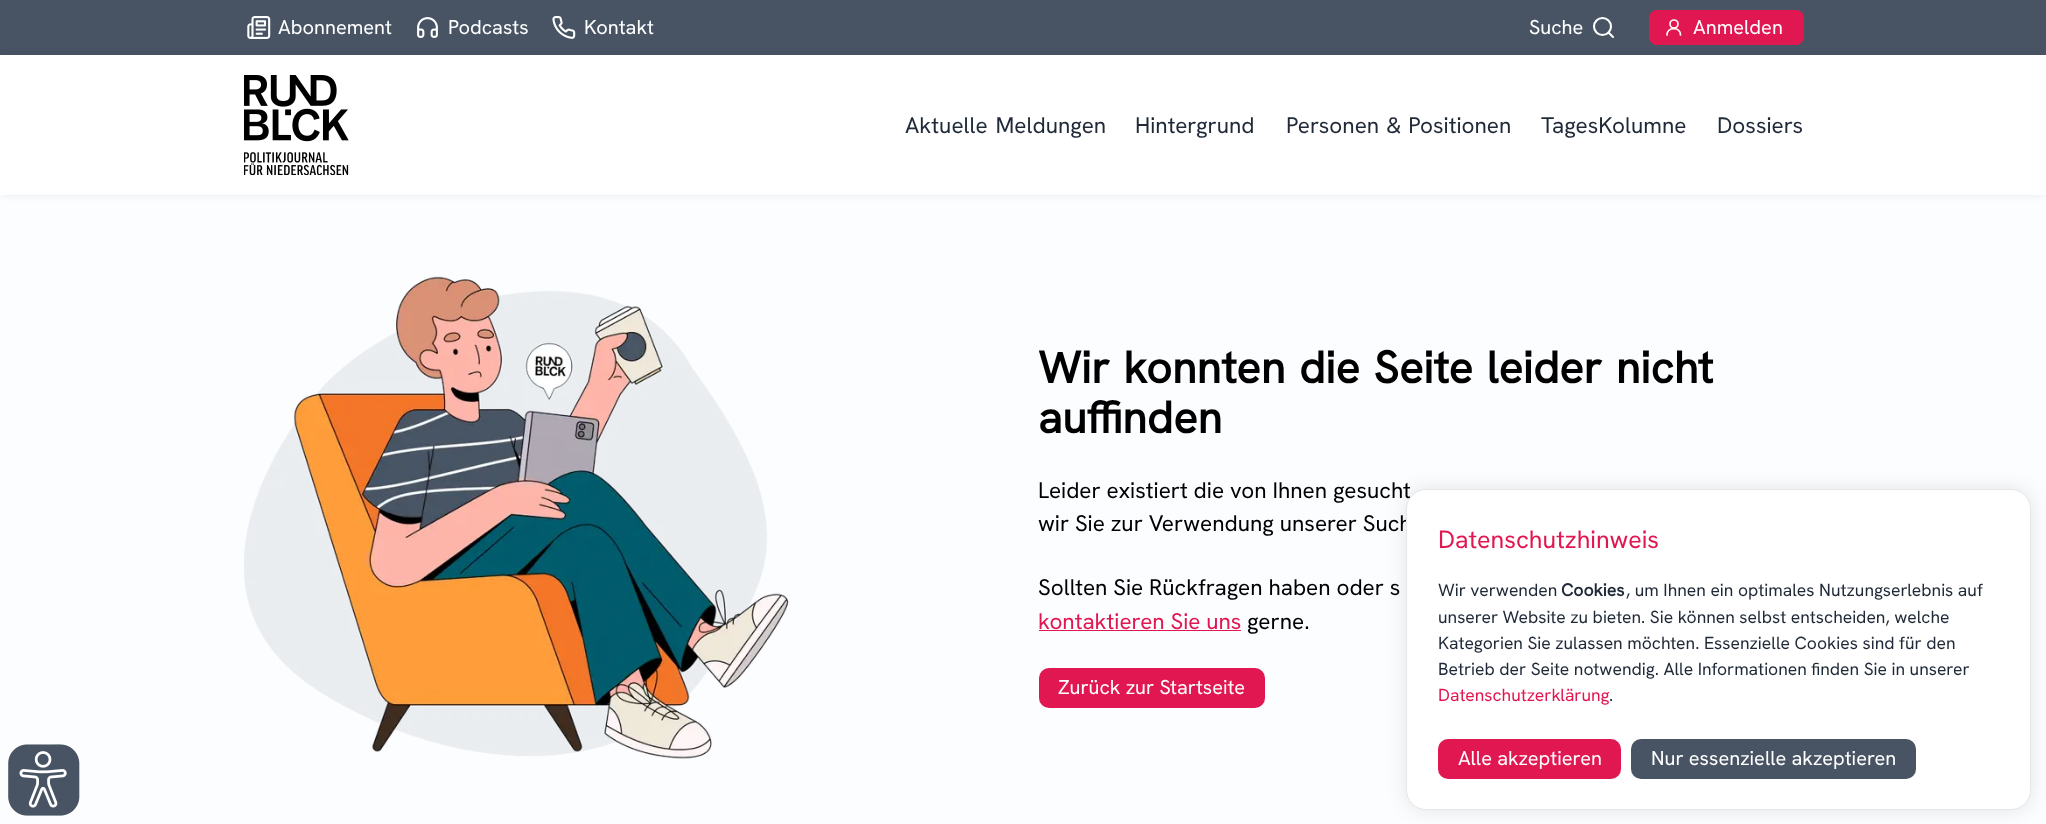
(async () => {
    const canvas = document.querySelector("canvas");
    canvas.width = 2046;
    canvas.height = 824;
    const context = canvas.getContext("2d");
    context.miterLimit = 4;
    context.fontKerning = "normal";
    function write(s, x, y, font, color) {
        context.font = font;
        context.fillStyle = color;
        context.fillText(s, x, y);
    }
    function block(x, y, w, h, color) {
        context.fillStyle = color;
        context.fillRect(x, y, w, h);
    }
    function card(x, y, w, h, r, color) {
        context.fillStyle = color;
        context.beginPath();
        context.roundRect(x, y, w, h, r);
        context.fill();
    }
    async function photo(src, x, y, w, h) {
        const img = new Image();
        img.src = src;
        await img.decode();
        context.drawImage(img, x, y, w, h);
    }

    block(0, 0, 2046, 824, "rgb(252, 253, 255)");
    block(0, 0, 2046, 55, "rgb(72, 84, 100)");
    await photo("media/1.png", 247, 16, 24, 23);
    write("Abonnement", 278, 34, "20px Hanken Grotesk", "rgb(255, 255, 255)");
    await photo("media/2.png", 417, 17, 21, 21);
    write("Podcasts", 448, 34, "20px Hanken Grotesk", "rgb(255, 255, 255)");
    await photo("media/3.png", 552, 16, 24, 23);
    write("Kontakt", 584, 34, "20px Hanken Grotesk", "rgb(255, 255, 255)");
    write("Suche", 1529, 34, "20px Hanken Grotesk", "rgb(255, 255, 255)");
    context.beginPath();
    context.arc(1602.5, 26.5, 8.5, 0, Math.PI * 2);
    context.strokeStyle = "rgb(255, 255, 255)";
    context.lineWidth = 2.1;
    context.stroke();
    context.beginPath();
    context.moveTo(1613, 37);
    context.lineTo(1608.5, 32.5);
    context.lineCap = "round";
    context.lineJoin = "round";
    context.stroke();
    card(1649, 10, 155, 35, 8, "rgb(225, 23, 81)");
    context.beginPath();
    context.arc(1674, 24, 4, 0, Math.PI * 2);
    context.strokeStyle = "rgb(255, 250, 250)";
    context.lineWidth = 1.7;
    context.stroke();
    context.beginPath();
    context.moveTo(1680.5, 35);
    context.bezierCurveTo(1680.5, 26.5, 1667, 26.5, 1667, 35);
    context.stroke();
    write("Anmelden", 1693, 34, "20px Hanken Grotesk", "rgb(255, 255, 255)");
    context.fillStyle = "rgba(0, 0, 0, 0.1)";
    context.filter = "blur(4.5px)";
    context.beginPath();
    context.rect(1, 56, 2044, 138);
    context.fill();
    context.filter = "none";
    block(0, 55, 2046, 140, "rgb(255, 255, 255)");
    await photo("media/4.png", 244, 75, 105, 100);
    context.wordSpacing = "2px";
    write("Aktuelle Meldungen", 905, 133, "22.5px Hanken Grotesk", "rgb(31, 41, 55)");
    context.wordSpacing = "0px";
    write("Hintergrund", 1135, 133, "22.5px Hanken Grotesk", "rgb(31, 41, 55)");
    context.wordSpacing = "1px";
    write("Personen & Positionen", 1286, 133, "22.5px Hanken Grotesk", "rgb(31, 41, 55)");
    context.wordSpacing = "0px";
    write("TagesKolumne", 1541, 133, "22.5px Hanken Grotesk", "rgb(31, 41, 55)");
    write("Dossiers", 1717, 133, "22.5px Hanken Grotesk", "rgb(31, 41, 55)");
    await photo("media/5.png", 244, 276, 545, 483);
    context.wordSpacing = "2px";
    write("Wir konnten die Seite leider nicht", 1038, 383, "bold 45px Hanken Grotesk", "rgb(0, 0, 0)");
    context.wordSpacing = "0px";
    write("auffinden", 1038, 433, "bold 45px Hanken Grotesk", "rgb(0, 0, 0)");
    write("Leider existiert die von Ihnen gesucht", 1038, 498, "22.5px Hanken Grotesk", "rgb(0, 0, 0)");
    write("wir Sie zur Verwendung unserer Such", 1038, 531, "22.5px Hanken Grotesk", "rgb(0, 0, 0)");
    write("Sollten Sie Rückfragen haben oder s", 1038, 595, "22.5px Hanken Grotesk", "rgb(0, 0, 0)");
    write("kontaktieren Sie uns", 1038, 629, "22.5px Hanken Grotesk", "rgb(225, 23, 81)");
    block(1039, 630, 202, 1, "rgb(225, 23, 81)");
    write("gerne.", 1247, 629, "22.5px Hanken Grotesk", "rgb(0, 0, 0)");
    card(1039, 668, 226, 40, 10, "rgb(225, 23, 81)");
    write("Zurück zur Startseite", 1058, 694, "20px Hanken Grotesk", "rgb(255, 255, 255)");
    context.fillStyle = "rgba(0, 0, 0, 0.1)";
    context.filter = "blur(9.5px)";
    context.beginPath();
    context.roundRect(1406, 489, 625, 321, 20);
    context.fill();
    context.filter = "none";
    context.fillStyle = "rgb(255, 255, 255)";
    context.beginPath();
    context.roundRect(1406.5, 489.5, 624, 320, 19.5);
    context.fill();
    context.strokeStyle = "rgb(229, 231, 235)";
    context.lineWidth = 1;
    context.lineJoin = "miter";
    context.stroke();
    write("Datenschutzhinweis", 1438, 548, "25px Hanken Grotesk", "rgb(225, 23, 81)");
    write("Wir verwenden", 1438, 596, "17.5px Hanken Grotesk", "rgb(31, 41, 55)");
    write("Cookies", 1561, 596, "bold 17.5px Hanken Grotesk", "rgb(31, 41, 55)");
    write(", um Ihnen ein optimales Nutzungserlebnis auf", 1626, 596, "17.5px Hanken Grotesk", "rgb(31, 41, 55)");
    write("unserer Website zu bieten. Sie können selbst entscheiden, welche", 1438, 623, "17.5px Hanken Grotesk", "rgb(31, 41, 55)");
    write("Kategorien Sie zulassen möchten. Essenzielle Cookies sind für den", 1438, 649, "17.5px Hanken Grotesk", "rgb(31, 41, 55)");
    write("Betrieb der Seite notwendig. Alle Informationen finden Sie in unserer", 1438, 675, "17.5px Hanken Grotesk", "rgb(31, 41, 55)");
    write("Datenschutzerklärung", 1438, 701, "17.5px Hanken Grotesk", "rgb(225, 23, 81)");
    write(".", 1609, 701, "17.5px Hanken Grotesk", "rgb(31, 41, 55)");
    card(1438, 739, 183, 40, 10, "rgb(225, 23, 81)");
    write("Alle akzeptieren", 1458, 765, "20px Hanken Grotesk", "rgb(255, 255, 255)");
    card(1631, 739, 285, 40, 10, "rgb(72, 84, 100)");
    write("Nur essenzielle akzeptieren", 1651, 765, "20px Hanken Grotesk", "rgb(255, 255, 255)");
    await photo("media/6.png", 8, 744, 72, 72);
})();
